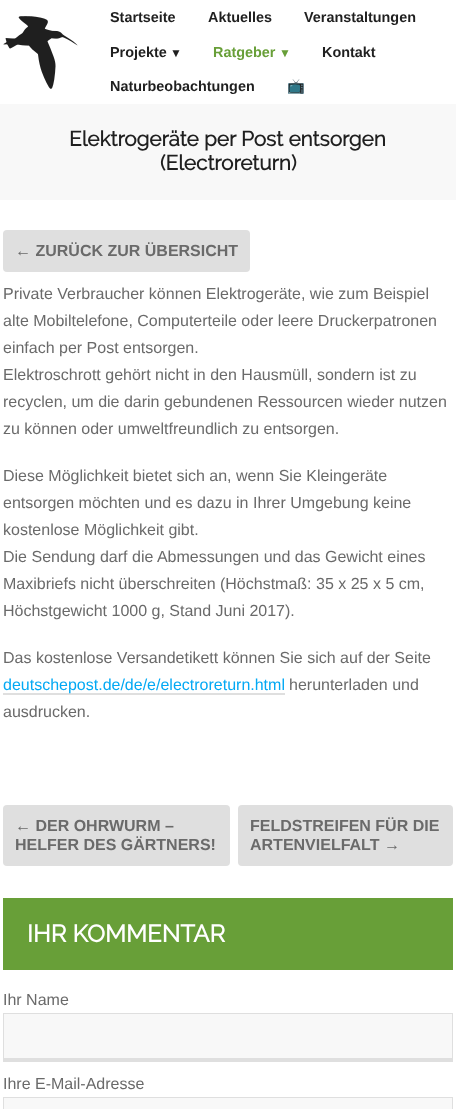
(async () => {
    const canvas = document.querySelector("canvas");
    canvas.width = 456;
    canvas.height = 1109;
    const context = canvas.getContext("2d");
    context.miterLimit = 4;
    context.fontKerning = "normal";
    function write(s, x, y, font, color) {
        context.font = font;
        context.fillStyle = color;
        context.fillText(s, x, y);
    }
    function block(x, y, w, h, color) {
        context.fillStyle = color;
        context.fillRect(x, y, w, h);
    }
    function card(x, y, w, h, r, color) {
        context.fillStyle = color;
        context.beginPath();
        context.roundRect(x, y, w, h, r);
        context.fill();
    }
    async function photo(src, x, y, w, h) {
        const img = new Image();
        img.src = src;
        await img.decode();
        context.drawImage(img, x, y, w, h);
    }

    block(0, 0, 456, 1109, "rgb(255, 255, 255)");
    await photo("media/1.png", 3, 16, 75, 73);
    write("Startseite", 110, 22, "bold 14.4px Liberation Sans", "rgb(31, 31, 31)");
    write("Aktuelles", 208, 22, "bold 14.4px Liberation Sans", "rgb(31, 31, 31)");
    write("Veranstaltungen", 304, 22, "bold 14.4px Liberation Sans", "rgb(31, 31, 31)");
    write("Projekte", 110, 57, "bold 14.4px Liberation Sans", "rgb(31, 31, 31)");
    write("▼", 170, 57, "bold 12px Liberation Sans", "rgb(31, 31, 31)");
    write("Ratgeber", 213, 57, "bold 14.4px Liberation Sans", "rgb(104, 159, 56)");
    write("▼", 279, 57, "bold 12px Liberation Sans", "rgb(104, 159, 56)");
    write("Kontakt", 322, 57, "bold 14.4px Liberation Sans", "rgb(31, 31, 31)");
    write("Naturbeobachtungen", 110, 91, "bold 14.4px Liberation Sans", "rgb(31, 31, 31)");
    write("📺", 287, 91, "bold 14.4px Noto Color Emoji", "rgb(31, 31, 31)");
    block(0, 104, 456, 96, "rgb(248, 248, 248)");
    write("Elektrogeräte per Post entsorgen", 69, 146, "bold 20.75px Raleway", "rgb(31, 31, 31)");
    write("(Electroreturn)", 160, 170, "bold 20.75px Raleway", "rgb(31, 31, 31)");
    card(3, 230, 247, 42, 4, "rgb(223, 223, 223)");
    write("← ZURÜCK ZUR ÜBERSICHT", 15, 256, "bold 16px Liberation Sans", "rgb(106, 106, 106)");
    write("Private Verbraucher können Elektrogeräte, wie zum Beispiel", 3, 299, "16px Liberation Sans", "rgb(106, 106, 106)");
    write("alte Mobiltelefone, Computerteile oder leere Druckerpatronen", 3, 326, "16px Liberation Sans", "rgb(106, 106, 106)");
    write("einfach per Post entsorgen.", 3, 353, "16px Liberation Sans", "rgb(106, 106, 106)");
    write("Elektroschrott gehört nicht in den Hausmüll, sondern ist zu", 3, 380, "16px Liberation Sans", "rgb(106, 106, 106)");
    write("recyclen, um die darin gebundenen Ressourcen wieder nutzen", 3, 407, "16px Liberation Sans", "rgb(106, 106, 106)");
    write("zu können oder umweltfreundlich zu entsorgen.", 3, 434, "16px Liberation Sans", "rgb(106, 106, 106)");
    write("Diese Möglichkeit bietet sich an, wenn Sie Kleingeräte", 3, 481, "16px Liberation Sans", "rgb(106, 106, 106)");
    write("entsorgen möchten und es dazu in Ihrer Umgebung keine", 3, 508, "16px Liberation Sans", "rgb(106, 106, 106)");
    write("kostenlose Möglichkeit gibt.", 3, 535, "16px Liberation Sans", "rgb(106, 106, 106)");
    write("Die Sendung darf die Abmessungen und das Gewicht eines", 3, 562, "16px Liberation Sans", "rgb(106, 106, 106)");
    write("Maxibriefs nicht überschreiten (Höchstmaß: 35 x 25 x 5 cm,", 3, 589, "16px Liberation Sans", "rgb(106, 106, 106)");
    write("Höchstgewicht 1000 g, Stand Juni 2017).", 3, 616, "16px Liberation Sans", "rgb(106, 106, 106)");
    write("Das kostenlose Versandetikett können Sie sich auf der Seite", 3, 663, "16px Liberation Sans", "rgb(106, 106, 106)");
    block(3, 693, 282, 2, "rgb(223, 223, 223)");
    write("deutschepost.de/de/e/electroreturn.html", 3, 690, "16px Liberation Sans", "rgb(3, 169, 244)");
    write("herunterladen und", 289, 690, "16px Liberation Sans", "rgb(106, 106, 106)");
    write("ausdrucken.", 3, 717, "16px Liberation Sans", "rgb(106, 106, 106)");
    card(3, 805, 227, 61, 4, "rgb(223, 223, 223)");
    write("← DER OHRWURM –", 15, 831, "bold 16px Liberation Sans", "rgb(106, 106, 106)");
    write("HELFER DES GÄRTNERS!", 15, 850, "bold 16px Liberation Sans", "rgb(106, 106, 106)");
    card(238, 805, 215, 61, 4, "rgb(223, 223, 223)");
    write("FELDSTREIFEN FÜR DIE", 250, 831, "bold 16px Liberation Sans", "rgb(106, 106, 106)");
    write("ARTENVIELFALT →", 250, 850, "bold 16px Liberation Sans", "rgb(106, 106, 106)");
    block(3, 898, 450, 72, "rgb(104, 159, 56)");
    write("IHR KOMMENTAR", 27, 942, "bold 24px Raleway", "rgb(255, 255, 255)");
    write("Ihr Name", 3, 1005, "16px Liberation Sans", "rgb(106, 106, 106)");
    block(4, 1014, 448, 44, "rgb(248, 248, 248)");
    block(3, 1013, 450, 1, "rgb(223, 223, 223)");
    block(452, 1013, 1, 49, "rgb(223, 223, 223)");
    block(3, 1058, 450, 4, "rgb(223, 223, 223)");
    block(3, 1013, 1, 49, "rgb(223, 223, 223)");
    write("Ihre E-Mail-Adresse", 3, 1089, "16px Liberation Sans", "rgb(106, 106, 106)");
    block(4, 1098, 448, 11, "rgb(248, 248, 248)");
    block(3, 1097, 450, 1, "rgb(223, 223, 223)");
    block(452, 1097, 1, 12, "rgb(223, 223, 223)");
    block(3, 1097, 1, 12, "rgb(223, 223, 223)");
})();
